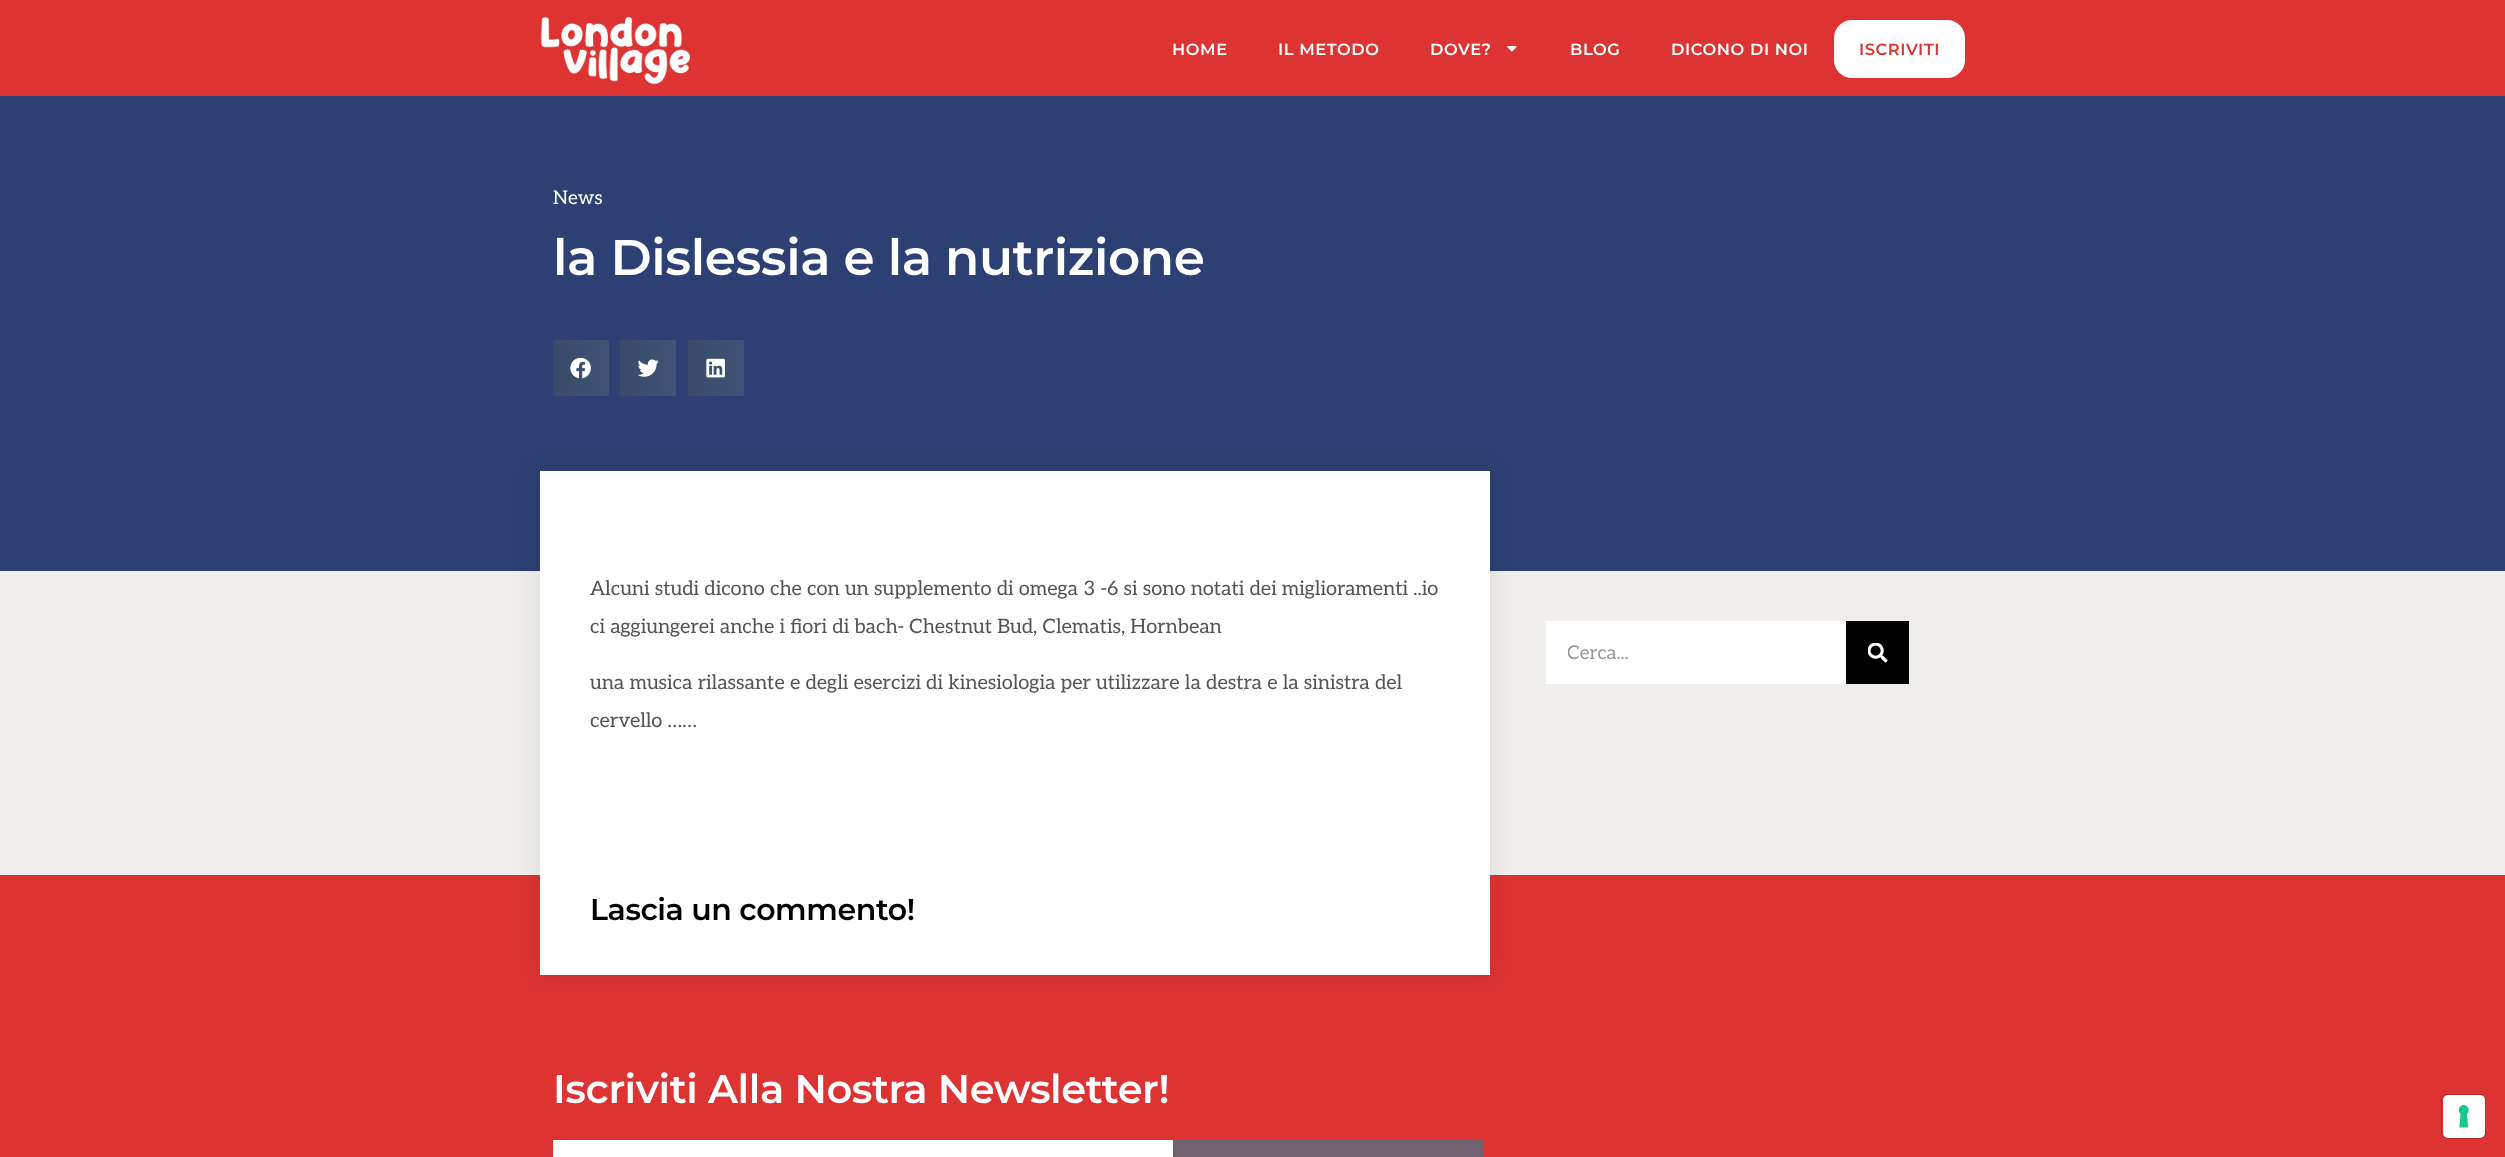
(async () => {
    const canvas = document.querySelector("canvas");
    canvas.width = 2505;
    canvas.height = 1157;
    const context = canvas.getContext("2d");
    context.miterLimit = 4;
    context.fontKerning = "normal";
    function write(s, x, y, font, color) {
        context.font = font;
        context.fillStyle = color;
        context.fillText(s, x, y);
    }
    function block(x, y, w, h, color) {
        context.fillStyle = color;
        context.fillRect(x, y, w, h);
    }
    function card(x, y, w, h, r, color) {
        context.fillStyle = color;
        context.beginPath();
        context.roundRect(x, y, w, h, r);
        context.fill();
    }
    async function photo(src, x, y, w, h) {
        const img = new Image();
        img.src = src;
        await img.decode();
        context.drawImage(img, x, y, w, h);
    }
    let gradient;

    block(0, 0, 2505, 1157, "rgb(239, 238, 234)");
    block(0, 0, 2505, 96, "rgb(221, 51, 51)");
    await photo("media/1.png", 540, 17, 150, 67);
    context.letterSpacing = "0.6px";
    write("HOME", 1172, 55, "600 16.25px Montserrat", "rgb(255, 255, 255)");
    write("IL METODO", 1278, 55, "600 16.25px Montserrat", "rgb(255, 255, 255)");
    write("DOVE?", 1430, 55, "600 16.25px Montserrat", "rgb(255, 255, 255)");
    await photo("media/2.png", 1507, 46, 10, 6);
    write("BLOG", 1570, 55, "600 16.25px Montserrat", "rgb(255, 255, 255)");
    write("DICONO DI NOI", 1671, 55, "600 16.25px Montserrat", "rgb(255, 255, 255)");
    card(1834, 20, 131, 58, 18, "rgb(255, 255, 255)");
    write("ISCRIVITI", 1859, 55, "600 16.25px Montserrat", "rgb(221, 51, 51)");
    block(0, 96, 2505, 475, "rgb(45, 64, 115)");
    context.letterSpacing = "0px";
    write("News", 553, 204, "19px Aleo", "rgb(255, 255, 255)");
    context.letterSpacing = "-0.4px";
    write("la Dislessia e la nutrizione", 553, 275, "600 50px Montserrat", "rgb(255, 255, 255)");
    gradient = context.createLinearGradient(553, 368, 609, 368);
    gradient.addColorStop(0, "rgb(55, 74, 105)");
    gradient.addColorStop(1, "rgb(63, 84, 119)");
    context.fillStyle = gradient;
    context.fillRect(553, 340, 56, 56);
    await photo("media/3.png", 570, 358, 21, 21);
    gradient = context.createLinearGradient(620, 368, 676, 368);
    gradient.addColorStop(0, "rgb(55, 74, 105)");
    gradient.addColorStop(1, "rgb(63, 84, 119)");
    context.fillStyle = gradient;
    context.fillRect(620, 340, 56, 56);
    await photo("media/4.png", 638, 359, 21, 18);
    gradient = context.createLinearGradient(688, 368, 744, 368);
    gradient.addColorStop(0, "rgb(55, 74, 105)");
    gradient.addColorStop(1, "rgb(63, 84, 119)");
    context.fillStyle = gradient;
    context.fillRect(688, 340, 56, 56);
    await photo("media/5.png", 706, 358, 19, 20);
    block(0, 875, 2505, 282, "rgb(221, 51, 51)");
    context.fillStyle = "rgba(0, 0, 0, 0.09)";
    context.filter = "blur(12.5px)";
    context.beginPath();
    context.rect(540, 471, 950, 504);
    context.fill();
    context.filter = "none";
    block(540, 471, 950, 504, "rgb(255, 255, 255)");
    context.letterSpacing = "0px";
    write("Alcuni studi dicono che con un supplemento di omega 3 -6 si sono notati dei miglioramenti ..io", 590, 595, "20px Aleo", "rgb(84, 84, 84)");
    write("ci aggiungerei anche i fiori di bach- Chestnut Bud, Clematis, Hornbean", 590, 633, "20px Aleo", "rgb(84, 84, 84)");
    write("una musica rilassante e degli esercizi di kinesiologia per utilizzare la destra e la sinistra del", 590, 689, "20px Aleo", "rgb(84, 84, 84)");
    write("cervello ……", 590, 727, "20px Aleo", "rgb(84, 84, 84)");
    context.letterSpacing = "-0.4px";
    write("Lascia un commento!", 590, 920, "600 30px Montserrat", "rgb(0, 0, 0)");
    block(1546, 621, 300, 63, "rgb(255, 255, 255)");
    context.save();
    context.beginPath();
    context.rect(1568, 641, 240, 23);
    context.clip();
    context.letterSpacing = "0px";
    write("Cerca...", 1567, 659, "19px Aleo", "rgb(152, 152, 152)");
    context.restore();
    block(1846, 621, 63, 63, "rgb(0, 0, 0)");
    await photo("media/6.png", 1868, 643, 20, 20);
    write("Iscriviti Alla Nostra Newsletter!", 553, 1103, "600 40px Montserrat", "rgb(255, 255, 255)");
    block(553, 1140, 620, 17, "rgb(255, 255, 255)");
    block(1173, 1140, 310, 17, "rgb(113, 96, 109)");
    context.beginPath();
    context.roundRect(2441.5, 1094.5, 44, 44, 5.5);
    context.strokeStyle = "rgb(188, 43, 43)";
    context.stroke();
    card(2443, 1095, 42, 43, 5, "rgb(255, 255, 255)");
    await photo("media/7.png", 2458, 1105, 11, 23);
})();
